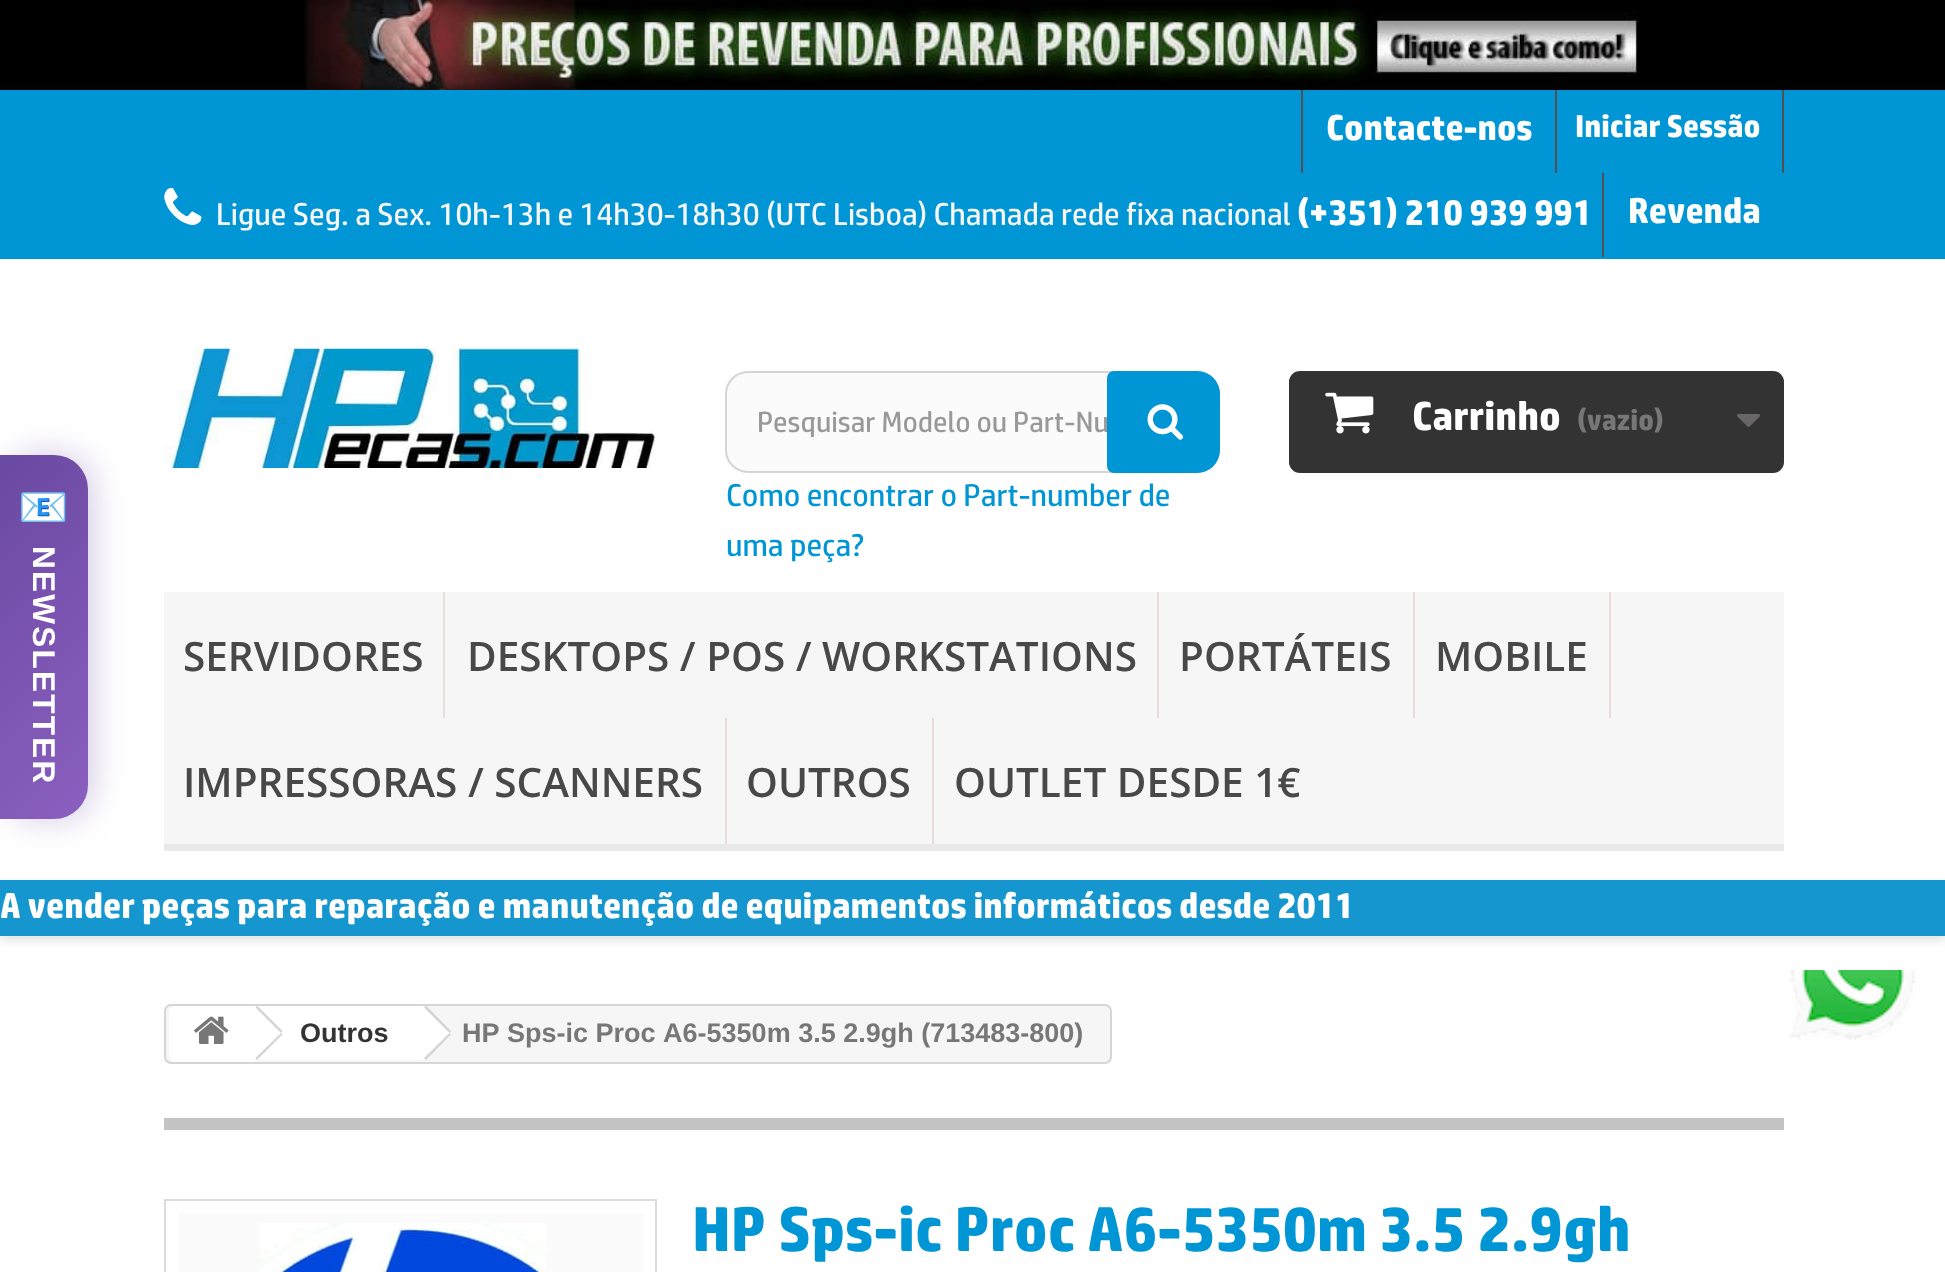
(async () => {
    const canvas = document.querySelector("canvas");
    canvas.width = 1945;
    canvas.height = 1272;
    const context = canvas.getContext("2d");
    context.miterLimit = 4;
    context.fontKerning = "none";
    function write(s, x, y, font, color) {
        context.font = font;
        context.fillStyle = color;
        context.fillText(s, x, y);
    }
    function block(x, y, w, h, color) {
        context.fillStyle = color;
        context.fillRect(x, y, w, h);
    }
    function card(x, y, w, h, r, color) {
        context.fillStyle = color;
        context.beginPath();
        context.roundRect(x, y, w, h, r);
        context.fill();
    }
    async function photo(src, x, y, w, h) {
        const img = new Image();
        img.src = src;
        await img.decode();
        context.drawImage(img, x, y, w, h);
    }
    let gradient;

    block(0, 0, 1945, 1272, "rgb(255, 255, 255)");
    block(0, 0, 1945, 90, "rgb(0, 0, 0)");
    await photo("media/1.png", 304, 0, 1334, 90);
    block(0, 90, 1945, 169, "rgb(0, 150, 214)");
    block(1301, 90, 2, 83, "rgb(81, 81, 81)");
    write("Contacte-nos", 1326, 140, "bold 36px 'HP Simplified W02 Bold'", "rgb(255, 255, 255)");
    block(1782, 90, 2, 83, "rgb(81, 81, 81)");
    block(1555, 90, 2, 83, "rgb(81, 81, 81)");
    write("Iniciar Sessão", 1575, 137, "bold 31.5px 'HP Simplified W02 Bold'", "rgb(255, 255, 255)");
    await photo("media/2.png", 164, 187, 38, 38);
    write("Ligue Seg. a Sex. 10h-13h e 14h30-18h30 (UTC Lisboa) Chamada rede fixa nacional", 216, 225, "31.5px 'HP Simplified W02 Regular'", "rgb(246, 246, 246)");
    write("(+351) 210 939 991", 1297, 225, "bold 36px 'HP Simplified W02 Bold'", "rgb(255, 255, 255)");
    block(1602, 173, 2, 84, "rgb(81, 81, 81)");
    write("Revenda", 1628, 223, "bold 36px 'HP Simplified W02 Bold'", "rgb(255, 255, 255)");
    await photo("media/3.png", 164, 348, 493, 120);
    context.fillStyle = "rgb(251, 251, 251)";
    context.beginPath();
    context.roundRect(726, 372, 493, 100, 22);
    context.fill();
    context.strokeStyle = "rgb(214, 212, 212)";
    context.lineWidth = 2;
    context.stroke();
    write("Pesquisar Modelo ou Part-Nu", 757, 432, "29.25px 'HP Simplified W02 Regular'", "rgb(153, 153, 153)");
    context.fillStyle = "rgb(0, 150, 214)";
    context.beginPath();
    context.roundRect(1107, 371, 113, 102, [7, 23, 23, 7]);
    context.fill();
    await photo("media/4.png", 1147, 404, 36, 36);
    write("Como encontrar o Part-number de", 726, 506, "31.5px 'HP Simplified W02 Regular'", "rgb(0, 150, 214)");
    write("uma peça?", 726, 556, "31.5px 'HP Simplified W02 Regular'", "rgb(0, 150, 214)");
    card(1289, 371, 495, 102, 11, "rgb(51, 51, 51)");
    await photo("media/5.png", 1325, 392, 49, 42);
    write("Carrinho", 1412, 430, "bold 40.5px 'HP Simplified W02 Bold'", "rgb(255, 255, 255)");
    write("(vazio)", 1577, 430, "bold 29.25px 'HP Simplified W02 Bold'", "rgb(119, 119, 119)");
    await photo("media/6.png", 1737, 414, 24, 13);
    block(164, 592, 1620, 252, "rgb(246, 246, 246)");
    block(164, 844, 1620, 7, "rgb(233, 233, 233)");
    block(443, 592, 2, 126, "rgb(234, 219, 219)");
    write("SERVIDORES", 183, 671, "600 40.5px Open Sans", "rgb(72, 72, 72)");
    block(1157, 592, 2, 126, "rgb(234, 219, 219)");
    write("DESKTOPS / POS / WORKSTATIONS", 467, 671, "600 40.5px Open Sans", "rgb(72, 72, 72)");
    block(1413, 592, 2, 126, "rgb(234, 219, 219)");
    write("PORTÁTEIS", 1179, 671, "600 40.5px Open Sans", "rgb(72, 72, 72)");
    block(1609, 592, 2, 126, "rgb(234, 219, 219)");
    write("MOBILE", 1435, 671, "600 40.5px Open Sans", "rgb(72, 72, 72)");
    block(725, 718, 2, 126, "rgb(234, 219, 219)");
    write("IMPRESSORAS / SCANNERS", 183, 797, "600 40.5px Open Sans", "rgb(72, 72, 72)");
    block(932, 718, 2, 126, "rgb(234, 219, 219)");
    write("OUTROS", 746, 797, "600 40.5px Open Sans", "rgb(72, 72, 72)");
    write("OUTLET DESDE 1€", 954, 797, "600 40.5px Open Sans", "rgb(72, 72, 72)");
    context.fillStyle = "rgba(0, 0, 0, 0.1)";
    context.filter = "blur(4.5px)";
    context.beginPath();
    context.rect(0, 884, 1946, 57);
    context.fill();
    context.filter = "none";
    block(0, 880, 1945, 56, "rgb(21, 150, 207)");
    write("A vender peças para reparação e manutenção de equipamentos informáticos desde 2011", 0, 918, "bold 36px 'HP Simplified W02 Bold'", "rgb(255, 255, 255)");
    context.fillStyle = "rgb(246, 246, 246)";
    context.beginPath();
    context.roundRect(165, 1005, 946, 58, 6);
    context.fill();
    context.stroke();
    context.fillStyle = "rgb(255, 255, 255)";
    context.beginPath();
    context.roundRect(169, 1006, 85, 56, [7, 0, 0, 7]);
    context.fill();
    await photo("media/7.png", 194, 1016, 35, 28);
    block(254, 1006, 169, 54, "rgb(255, 255, 255)");
    context.fillStyle = "rgb(214, 212, 212)";
    context.beginPath();
    context.moveTo(257, 1005.5);
    context.lineTo(282.5, 1031);
    context.lineTo(281, 1033);
    context.lineTo(255.5, 1007.5);
    context.closePath();
    context.moveTo(281, 1033);
    context.lineTo(282.5, 1034.5);
    context.lineTo(257, 1060);
    context.lineTo(255.5, 1058);
    context.closePath();
    context.fill();
    write("Outros", 300, 1042, "bold 27px Liberation Sans", "rgb(51, 51, 51)");
    context.fillStyle = "rgb(255, 255, 255)";
    context.beginPath();
    context.moveTo(427, 1007);
    context.lineTo(450, 1030);
    context.bezierCurveTo(451, 1031, 451, 1034, 450, 1036);
    context.lineTo(427, 1058);
    context.bezierCurveTo(426, 1060, 423, 1060, 421, 1058);
    context.lineTo(399, 1036);
    context.bezierCurveTo(397, 1034, 397, 1031, 399, 1030);
    context.lineTo(421, 1007);
    context.bezierCurveTo(423, 1006, 426, 1006, 427, 1007);
    context.closePath();
    context.fill();
    context.fillStyle = "rgb(214, 212, 212)";
    context.beginPath();
    context.moveTo(426, 1005.5);
    context.lineTo(451, 1031);
    context.lineTo(449.5, 1033);
    context.lineTo(424, 1007.5);
    context.closePath();
    context.moveTo(449.5, 1033);
    context.lineTo(451, 1034.5);
    context.lineTo(426, 1060);
    context.lineTo(424, 1058);
    context.closePath();
    context.fill();
    write("HP Sps-ic Proc A6-5350m 3.5 2.9gh (713483-800)", 462, 1042, "bold 27px Liberation Sans", "rgb(119, 119, 119)");
    block(164, 1118, 1620, 12, "rgb(196, 196, 196)");
    context.strokeStyle = "rgb(219, 219, 219)";
    context.strokeRect(165, 1200, 491, 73);
    block(178, 1213, 466, 59, "rgb(251, 251, 251)");
    await photo("media/8.png", 260, 1223, 286, 49);
    write("HP Sps-ic Proc A6-5350m 3.5 2.9gh", 692, 1251, "bold 63px 'HP Simplified W02 Bold'", "rgb(0, 150, 214)");
    context.fillStyle = "rgba(106, 73, 162, 0.3)";
    context.filter = "blur(17px)";
    context.beginPath();
    context.roundRect(5, 455, 87, 364, 34);
    context.fill();
    context.filter = "none";
    gradient = context.createLinearGradient(-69, 523, 157, 749);
    gradient.addColorStop(0, "rgb(106, 73, 162)");
    gradient.addColorStop(1, "rgb(139, 95, 191)");
    context.fillStyle = gradient;
    context.beginPath();
    context.roundRect(0, 455, 88, 364, [0, 34, 34, 0]);
    context.fill();
    context.letterSpacing = "2.25px";
    write("📧", 18, 521, "bold 40.5px Noto Color Emoji", "rgb(255, 255, 255)");
    context.font = "bold 31.5px Liberation Sans";
    context.save();
    context.translate(33, 546);
    context.rotate(90 * Math.PI / 180);
    context.fillText("NEWSLETTER", 0, 0);
    context.restore();
    await photo("media/9.png", 1790, 970, 126, 70);
})();
